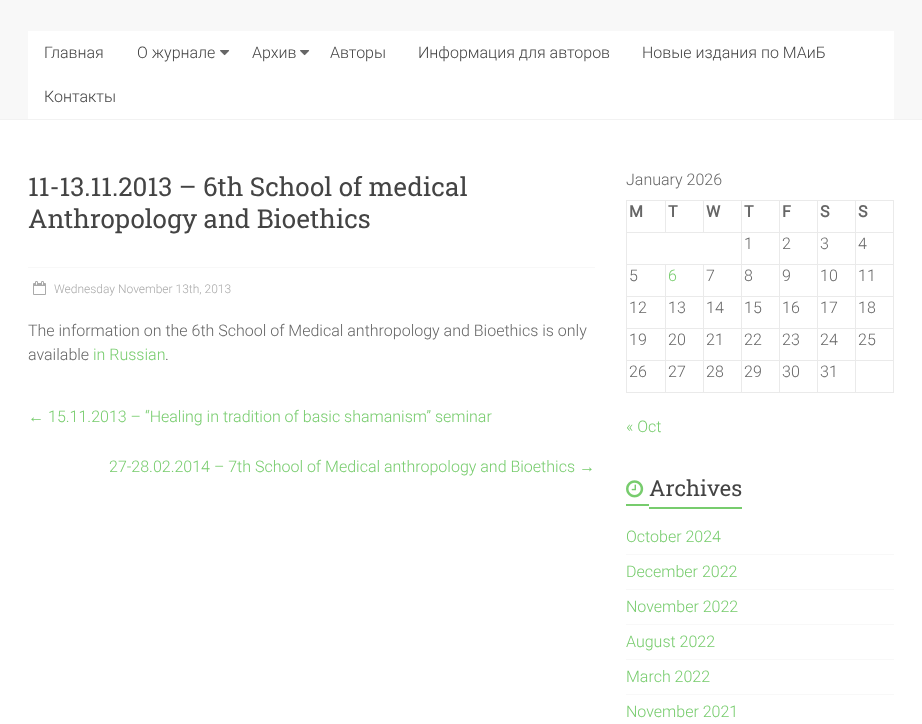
(async () => {
    const canvas = document.querySelector("canvas");
    canvas.width = 922;
    canvas.height = 724;
    const context = canvas.getContext("2d");
    context.miterLimit = 4;
    context.fontKerning = "normal";
    function write(s, x, y, font, color) {
        context.font = font;
        context.fillStyle = color;
        context.fillText(s, x, y);
    }
    function block(x, y, w, h, color) {
        context.fillStyle = color;
        context.fillRect(x, y, w, h);
    }
    async function photo(src, x, y, w, h) {
        const img = new Image();
        img.src = src;
        await img.decode();
        context.drawImage(img, x, y, w, h);
    }

    block(0, 0, 922, 724, "rgb(255, 255, 255)");
    block(0, 0, 922, 119, "rgb(248, 248, 248)");
    block(0, 119, 922, 1, "rgb(242, 242, 242)");
    block(28, 31, 866, 88, "rgb(255, 255, 255)");
    write("Главная", 44, 58, "300 16px Roboto", "rgb(68, 68, 68)");
    write("О журнале", 137, 58, "300 16px Roboto", "rgb(68, 68, 68)");
    await photo("media/1.png", 220, 50, 10, 6);
    write("Архив", 252, 58, "300 16px Roboto", "rgb(68, 68, 68)");
    await photo("media/1.png", 300, 50, 10, 6);
    write("Авторы", 330, 58, "300 16px Roboto", "rgb(68, 68, 68)");
    write("Информация для авторов", 418, 58, "300 16px Roboto", "rgb(68, 68, 68)");
    write("Новые издания по МАиБ", 642, 58, "300 16px Roboto", "rgb(68, 68, 68)");
    write("Контакты", 44, 102, "300 16px Roboto", "rgb(68, 68, 68)");
    write("11-13.11.2013 – 6th School of medical", 28, 196, "26px Roboto Slab", "rgb(68, 68, 68)");
    write("Anthropology and Bioethics", 28, 228, "26px Roboto Slab", "rgb(68, 68, 68)");
    block(28, 267, 567, 1, "rgb(248, 248, 248)");
    await photo("media/2.png", 33, 281, 13, 14);
    write("Wednesday November 13th, 2013", 54, 293, "300 12px Roboto", "rgb(170, 170, 170)");
    write("The information on the 6th School of Medical anthropology and Bioethics is only", 28, 336, "300 16px Roboto", "rgb(102, 102, 102)");
    write("available", 28, 360, "300 16px Roboto", "rgb(102, 102, 102)");
    write("in Russian", 93, 360, "300 16px Roboto", "rgb(119, 204, 109)");
    write(".", 165, 360, "300 16px Roboto", "rgb(102, 102, 102)");
    write("←", 28, 422, "16px Liberation Sans", "rgb(119, 204, 109)");
    write("15.11.2013 – “Healing in tradition of basic shamanism” seminar", 48, 422, "300 16px Roboto", "rgb(119, 204, 109)");
    write("27-28.02.2014 – 7th School of Medical anthropology and Bioethics", 109, 472, "300 16px Roboto", "rgb(119, 204, 109)");
    write("→", 579, 472, "16px Liberation Sans", "rgb(119, 204, 109)");
    write("January 2026", 626, 185, "300 16px Roboto", "rgb(102, 102, 102)");
    block(855, 200, 39, 1, "rgb(234, 234, 234)");
    block(855, 232, 39, 1, "rgb(234, 234, 234)");
    block(855, 264, 39, 1, "rgb(234, 234, 234)");
    block(855, 296, 39, 1, "rgb(234, 234, 234)");
    block(855, 328, 39, 1, "rgb(234, 234, 234)");
    block(855, 360, 39, 1, "rgb(234, 234, 234)");
    block(893, 360, 1, 33, "rgb(234, 234, 234)");
    block(855, 392, 39, 1, "rgb(234, 234, 234)");
    block(855, 360, 1, 33, "rgb(234, 234, 234)");
    block(817, 360, 39, 1, "rgb(234, 234, 234)");
    block(855, 328, 1, 33, "rgb(234, 234, 234)");
    block(817, 328, 39, 1, "rgb(234, 234, 234)");
    block(855, 296, 1, 33, "rgb(234, 234, 234)");
    block(817, 296, 39, 1, "rgb(234, 234, 234)");
    block(855, 264, 1, 33, "rgb(234, 234, 234)");
    block(817, 264, 39, 1, "rgb(234, 234, 234)");
    block(855, 232, 1, 33, "rgb(234, 234, 234)");
    block(817, 232, 39, 1, "rgb(234, 234, 234)");
    block(855, 200, 1, 33, "rgb(234, 234, 234)");
    block(817, 200, 39, 1, "rgb(234, 234, 234)");
    block(817, 392, 39, 1, "rgb(234, 234, 234)");
    block(817, 360, 1, 33, "rgb(234, 234, 234)");
    block(779, 360, 39, 1, "rgb(234, 234, 234)");
    block(817, 328, 1, 33, "rgb(234, 234, 234)");
    block(779, 328, 39, 1, "rgb(234, 234, 234)");
    block(817, 296, 1, 33, "rgb(234, 234, 234)");
    block(779, 296, 39, 1, "rgb(234, 234, 234)");
    block(817, 264, 1, 33, "rgb(234, 234, 234)");
    block(779, 264, 39, 1, "rgb(234, 234, 234)");
    block(817, 232, 1, 33, "rgb(234, 234, 234)");
    block(779, 232, 39, 1, "rgb(234, 234, 234)");
    block(817, 200, 1, 33, "rgb(234, 234, 234)");
    block(779, 200, 39, 1, "rgb(234, 234, 234)");
    block(779, 392, 39, 1, "rgb(234, 234, 234)");
    block(779, 360, 1, 33, "rgb(234, 234, 234)");
    block(741, 360, 39, 1, "rgb(234, 234, 234)");
    block(779, 328, 1, 33, "rgb(234, 234, 234)");
    block(741, 328, 39, 1, "rgb(234, 234, 234)");
    block(779, 296, 1, 33, "rgb(234, 234, 234)");
    block(741, 296, 39, 1, "rgb(234, 234, 234)");
    block(779, 264, 1, 33, "rgb(234, 234, 234)");
    block(741, 264, 39, 1, "rgb(234, 234, 234)");
    block(779, 232, 1, 33, "rgb(234, 234, 234)");
    block(741, 232, 39, 1, "rgb(234, 234, 234)");
    block(779, 200, 1, 33, "rgb(234, 234, 234)");
    block(741, 200, 39, 1, "rgb(234, 234, 234)");
    block(741, 392, 39, 1, "rgb(234, 234, 234)");
    block(741, 360, 1, 33, "rgb(234, 234, 234)");
    block(703, 360, 39, 1, "rgb(234, 234, 234)");
    block(741, 328, 1, 33, "rgb(234, 234, 234)");
    block(703, 328, 39, 1, "rgb(234, 234, 234)");
    block(741, 296, 1, 33, "rgb(234, 234, 234)");
    block(703, 296, 39, 1, "rgb(234, 234, 234)");
    block(741, 264, 1, 33, "rgb(234, 234, 234)");
    block(703, 264, 39, 1, "rgb(234, 234, 234)");
    block(741, 232, 1, 33, "rgb(234, 234, 234)");
    block(626, 232, 116, 1, "rgb(234, 234, 234)");
    block(741, 200, 1, 33, "rgb(234, 234, 234)");
    block(703, 200, 39, 1, "rgb(234, 234, 234)");
    block(703, 200, 1, 33, "rgb(234, 234, 234)");
    block(665, 200, 39, 1, "rgb(234, 234, 234)");
    block(665, 200, 1, 33, "rgb(234, 234, 234)");
    block(626, 200, 40, 1, "rgb(234, 234, 234)");
    block(703, 392, 39, 1, "rgb(234, 234, 234)");
    block(703, 360, 1, 33, "rgb(234, 234, 234)");
    block(665, 360, 39, 1, "rgb(234, 234, 234)");
    block(703, 328, 1, 33, "rgb(234, 234, 234)");
    block(665, 328, 39, 1, "rgb(234, 234, 234)");
    block(703, 296, 1, 33, "rgb(234, 234, 234)");
    block(665, 296, 39, 1, "rgb(234, 234, 234)");
    block(703, 264, 1, 33, "rgb(234, 234, 234)");
    block(665, 264, 39, 1, "rgb(234, 234, 234)");
    block(665, 392, 39, 1, "rgb(234, 234, 234)");
    block(665, 360, 1, 33, "rgb(234, 234, 234)");
    block(626, 360, 40, 1, "rgb(234, 234, 234)");
    block(665, 328, 1, 33, "rgb(234, 234, 234)");
    block(626, 328, 40, 1, "rgb(234, 234, 234)");
    block(665, 296, 1, 33, "rgb(234, 234, 234)");
    block(626, 296, 40, 1, "rgb(234, 234, 234)");
    block(665, 264, 1, 33, "rgb(234, 234, 234)");
    block(626, 264, 40, 1, "rgb(234, 234, 234)");
    block(626, 392, 40, 1, "rgb(234, 234, 234)");
    block(626, 360, 1, 33, "rgb(234, 234, 234)");
    block(626, 328, 1, 33, "rgb(234, 234, 234)");
    block(626, 296, 1, 33, "rgb(234, 234, 234)");
    block(626, 264, 1, 33, "rgb(234, 234, 234)");
    block(626, 232, 1, 33, "rgb(234, 234, 234)");
    block(626, 200, 1, 33, "rgb(234, 234, 234)");
    write("M", 629, 217, "bold 16px Roboto", "rgb(102, 102, 102)");
    write("T", 668, 217, "bold 16px Roboto", "rgb(102, 102, 102)");
    write("W", 706, 217, "bold 16px Roboto", "rgb(102, 102, 102)");
    write("T", 744, 217, "bold 16px Roboto", "rgb(102, 102, 102)");
    write("F", 782, 217, "bold 16px Roboto", "rgb(102, 102, 102)");
    write("S", 820, 217, "bold 16px Roboto", "rgb(102, 102, 102)");
    block(893, 328, 1, 33, "rgb(234, 234, 234)");
    block(893, 296, 1, 33, "rgb(234, 234, 234)");
    block(893, 264, 1, 33, "rgb(234, 234, 234)");
    block(893, 232, 1, 33, "rgb(234, 234, 234)");
    block(893, 200, 1, 33, "rgb(234, 234, 234)");
    write("S", 858, 217, "bold 16px Roboto", "rgb(102, 102, 102)");
    write("1", 744, 249, "300 16px Roboto", "rgb(102, 102, 102)");
    write("2", 782, 249, "300 16px Roboto", "rgb(102, 102, 102)");
    write("3", 820, 249, "300 16px Roboto", "rgb(102, 102, 102)");
    write("4", 858, 249, "300 16px Roboto", "rgb(102, 102, 102)");
    write("5", 629, 281, "300 16px Roboto", "rgb(102, 102, 102)");
    write("6", 668, 281, "300 16px Roboto", "rgb(119, 204, 109)");
    write("7", 706, 281, "300 16px Roboto", "rgb(102, 102, 102)");
    write("8", 744, 281, "300 16px Roboto", "rgb(102, 102, 102)");
    write("9", 782, 281, "300 16px Roboto", "rgb(102, 102, 102)");
    write("10", 820, 281, "300 16px Roboto", "rgb(102, 102, 102)");
    write("11", 858, 281, "300 16px Roboto", "rgb(102, 102, 102)");
    write("12", 629, 313, "300 16px Roboto", "rgb(102, 102, 102)");
    write("13", 668, 313, "300 16px Roboto", "rgb(102, 102, 102)");
    write("14", 706, 313, "300 16px Roboto", "rgb(102, 102, 102)");
    write("15", 744, 313, "300 16px Roboto", "rgb(102, 102, 102)");
    write("16", 782, 313, "300 16px Roboto", "rgb(102, 102, 102)");
    write("17", 820, 313, "300 16px Roboto", "rgb(102, 102, 102)");
    write("18", 858, 313, "300 16px Roboto", "rgb(102, 102, 102)");
    write("19", 629, 345, "300 16px Roboto", "rgb(102, 102, 102)");
    write("20", 668, 345, "300 16px Roboto", "rgb(102, 102, 102)");
    write("21", 706, 345, "300 16px Roboto", "rgb(102, 102, 102)");
    write("22", 744, 345, "300 16px Roboto", "rgb(102, 102, 102)");
    write("23", 782, 345, "300 16px Roboto", "rgb(102, 102, 102)");
    write("24", 820, 345, "300 16px Roboto", "rgb(102, 102, 102)");
    write("25", 858, 345, "300 16px Roboto", "rgb(102, 102, 102)");
    write("26", 629, 377, "300 16px Roboto", "rgb(102, 102, 102)");
    write("27", 668, 377, "300 16px Roboto", "rgb(102, 102, 102)");
    write("28", 706, 377, "300 16px Roboto", "rgb(102, 102, 102)");
    write("29", 744, 377, "300 16px Roboto", "rgb(102, 102, 102)");
    write("30", 782, 377, "300 16px Roboto", "rgb(102, 102, 102)");
    write("31", 820, 377, "300 16px Roboto", "rgb(102, 102, 102)");
    write("« Oct", 626, 432, "300 16px Roboto", "rgb(119, 204, 109)");
    await photo("media/3.png", 626, 480, 18, 18);
    write("Archives", 649, 496, "22px Roboto Slab", "rgb(68, 68, 68)");
    block(626, 504, 23, 2, "rgb(119, 204, 109)");
    block(649, 507, 93, 2, "rgb(119, 204, 109)");
    block(626, 554, 268, 1, "rgb(248, 248, 248)");
    write("October 2024", 626, 542, "300 16px Roboto", "rgb(119, 204, 109)");
    block(626, 589, 268, 1, "rgb(248, 248, 248)");
    write("December 2022", 626, 577, "300 16px Roboto", "rgb(119, 204, 109)");
    block(626, 624, 268, 1, "rgb(248, 248, 248)");
    write("November 2022", 626, 612, "300 16px Roboto", "rgb(119, 204, 109)");
    block(626, 659, 268, 1, "rgb(248, 248, 248)");
    write("August 2022", 626, 647, "300 16px Roboto", "rgb(119, 204, 109)");
    block(626, 694, 268, 1, "rgb(248, 248, 248)");
    write("March 2022", 626, 682, "300 16px Roboto", "rgb(119, 204, 109)");
    write("November 2021", 626, 717, "300 16px Roboto", "rgb(119, 204, 109)");
})();
